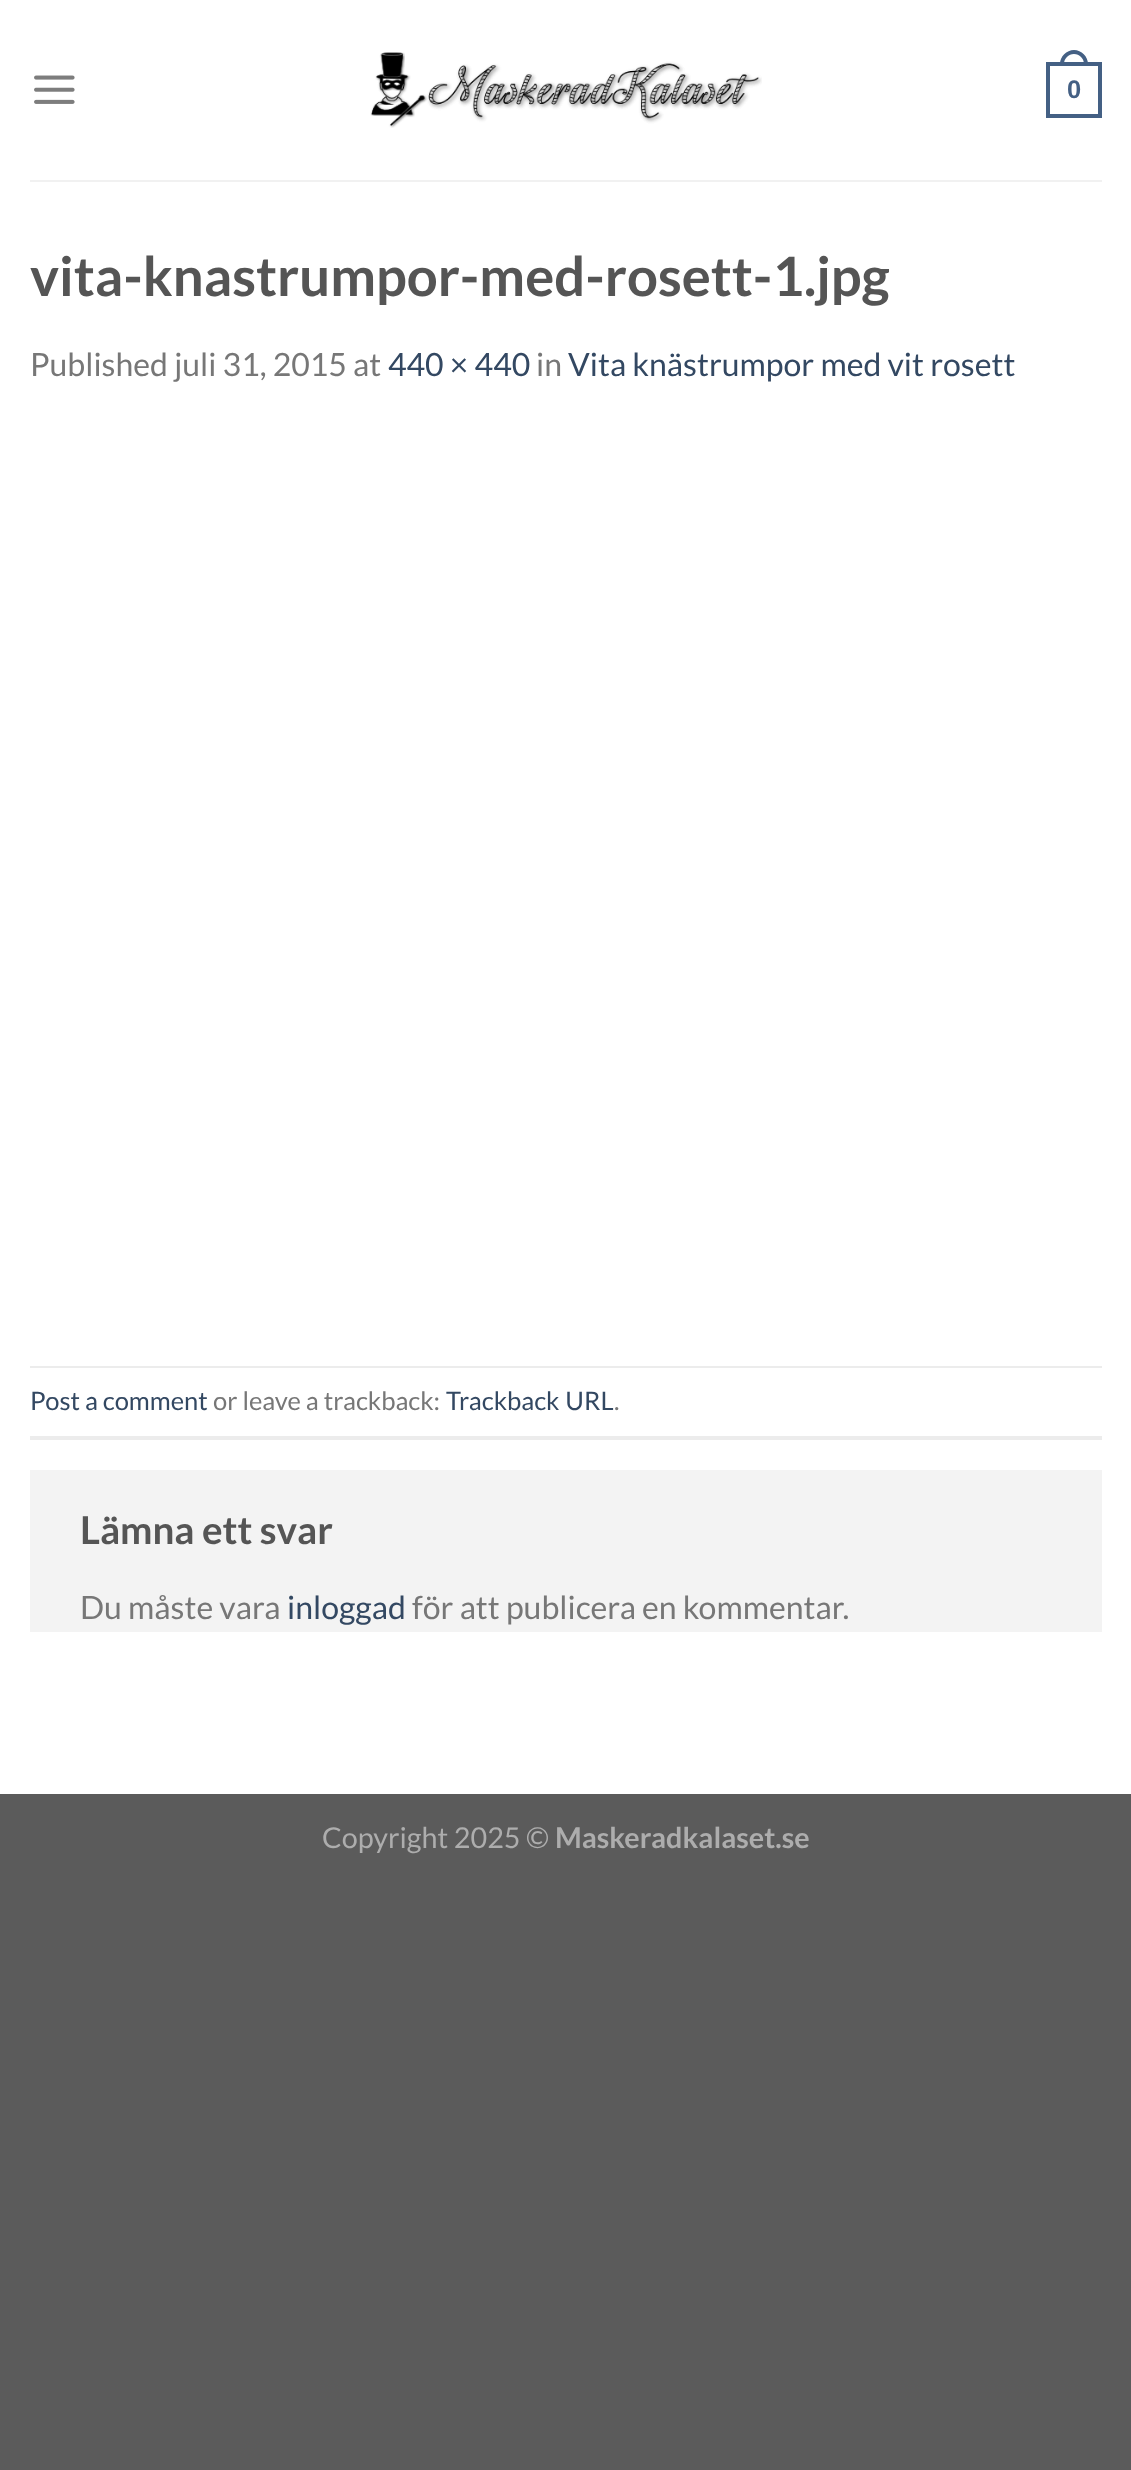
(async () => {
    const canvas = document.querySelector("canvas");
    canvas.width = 1131;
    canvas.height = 2470;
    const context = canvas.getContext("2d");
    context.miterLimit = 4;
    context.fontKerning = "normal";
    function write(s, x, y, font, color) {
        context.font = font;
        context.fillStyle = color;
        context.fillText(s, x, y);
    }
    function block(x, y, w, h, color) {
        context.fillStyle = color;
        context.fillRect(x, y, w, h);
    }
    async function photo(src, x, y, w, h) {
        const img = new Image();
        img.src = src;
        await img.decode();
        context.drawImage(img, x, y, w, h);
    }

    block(0, 0, 1131, 2470, "rgb(91, 91, 91)");
    block(0, 0, 1131, 1794, "rgb(255, 255, 255)");
    await photo("media/1.png", 34, 75, 41, 29);
    await photo("media/2.png", 370, 52, 392, 76);
    context.strokeStyle = "rgb(68, 96, 132)";
    context.lineWidth = 4;
    context.strokeRect(1048, 64, 52, 52);
    context.fillStyle = "rgb(68, 96, 132)";
    context.beginPath();
    context.moveTo(1074, 50);
    context.bezierCurveTo(1081.5, 50, 1088, 56.5, 1088, 64);
    context.lineTo(1088, 66);
    context.lineTo(1060, 66);
    context.lineTo(1060, 64);
    context.bezierCurveTo(1060, 56.5, 1066.5, 50, 1074, 50);
    context.closePath();
    context.moveTo(1074, 54);
    context.bezierCurveTo(1079.5, 54, 1084, 58.5, 1084, 64);
    context.lineTo(1084, 66);
    context.lineTo(1064, 66);
    context.lineTo(1064, 64);
    context.bezierCurveTo(1064, 58.5, 1068.5, 54, 1074, 54);
    context.closePath();
    context.fill("evenodd");
    write("0", 1067, 98, "bold 25.5px Liberation Sans", "rgb(68, 96, 132)");
    block(30, 180, 1072, 2, "rgb(241, 241, 241)");
    write("vita-knastrumpor-med-rosett-1.jpg", 30, 296, "bold 54.4px Lato", "rgb(85, 85, 85)");
    write("Published juli 31, 2015 at", 30, 376, "32px Lato", "rgb(119, 119, 119)");
    write("440 × 440", 388, 376, "32px Lato", "rgb(51, 72, 98)");
    write("in", 536, 376, "32px Lato", "rgb(119, 119, 119)");
    write("Vita knästrumpor med vit rosett", 568, 376, "32px Lato", "rgb(51, 72, 98)");
    block(30, 1366, 1072, 2, "rgb(236, 236, 236)");
    block(30, 1436, 1072, 4, "rgb(236, 236, 236)");
    write("Post a comment", 30, 1410, "25.5px Lato", "rgb(51, 72, 98)");
    write("or leave a trackback:", 213, 1410, "25.5px Lato", "rgb(119, 119, 119)");
    context.wordSpacing = "1px";
    write("Trackback URL", 446, 1410, "25.5px Lato", "rgb(51, 72, 98)");
    context.wordSpacing = "0px";
    write(".", 614, 1410, "25.5px Lato", "rgb(119, 119, 119)");
    block(30, 1470, 1072, 162, "rgb(243, 243, 243)");
    write("Lämna ett svar", 80, 1544, "bold 38.5px Lato", "rgb(85, 85, 85)");
    write("Du måste vara", 80, 1619, "32px Lato", "rgb(119, 119, 119)");
    write("inloggad", 287, 1619, "32px Lato", "rgb(51, 72, 98)");
    write("för att publicera en kommentar.", 412, 1619, "32px Lato", "rgb(119, 119, 119)");
    write("Copyright 2025 ©", 322, 1848, "28.75px Lato", "rgb(173, 173, 173)");
    write("Maskeradkalaset.se", 555, 1848, "bold 28.75px Lato", "rgb(173, 173, 173)");
})();
